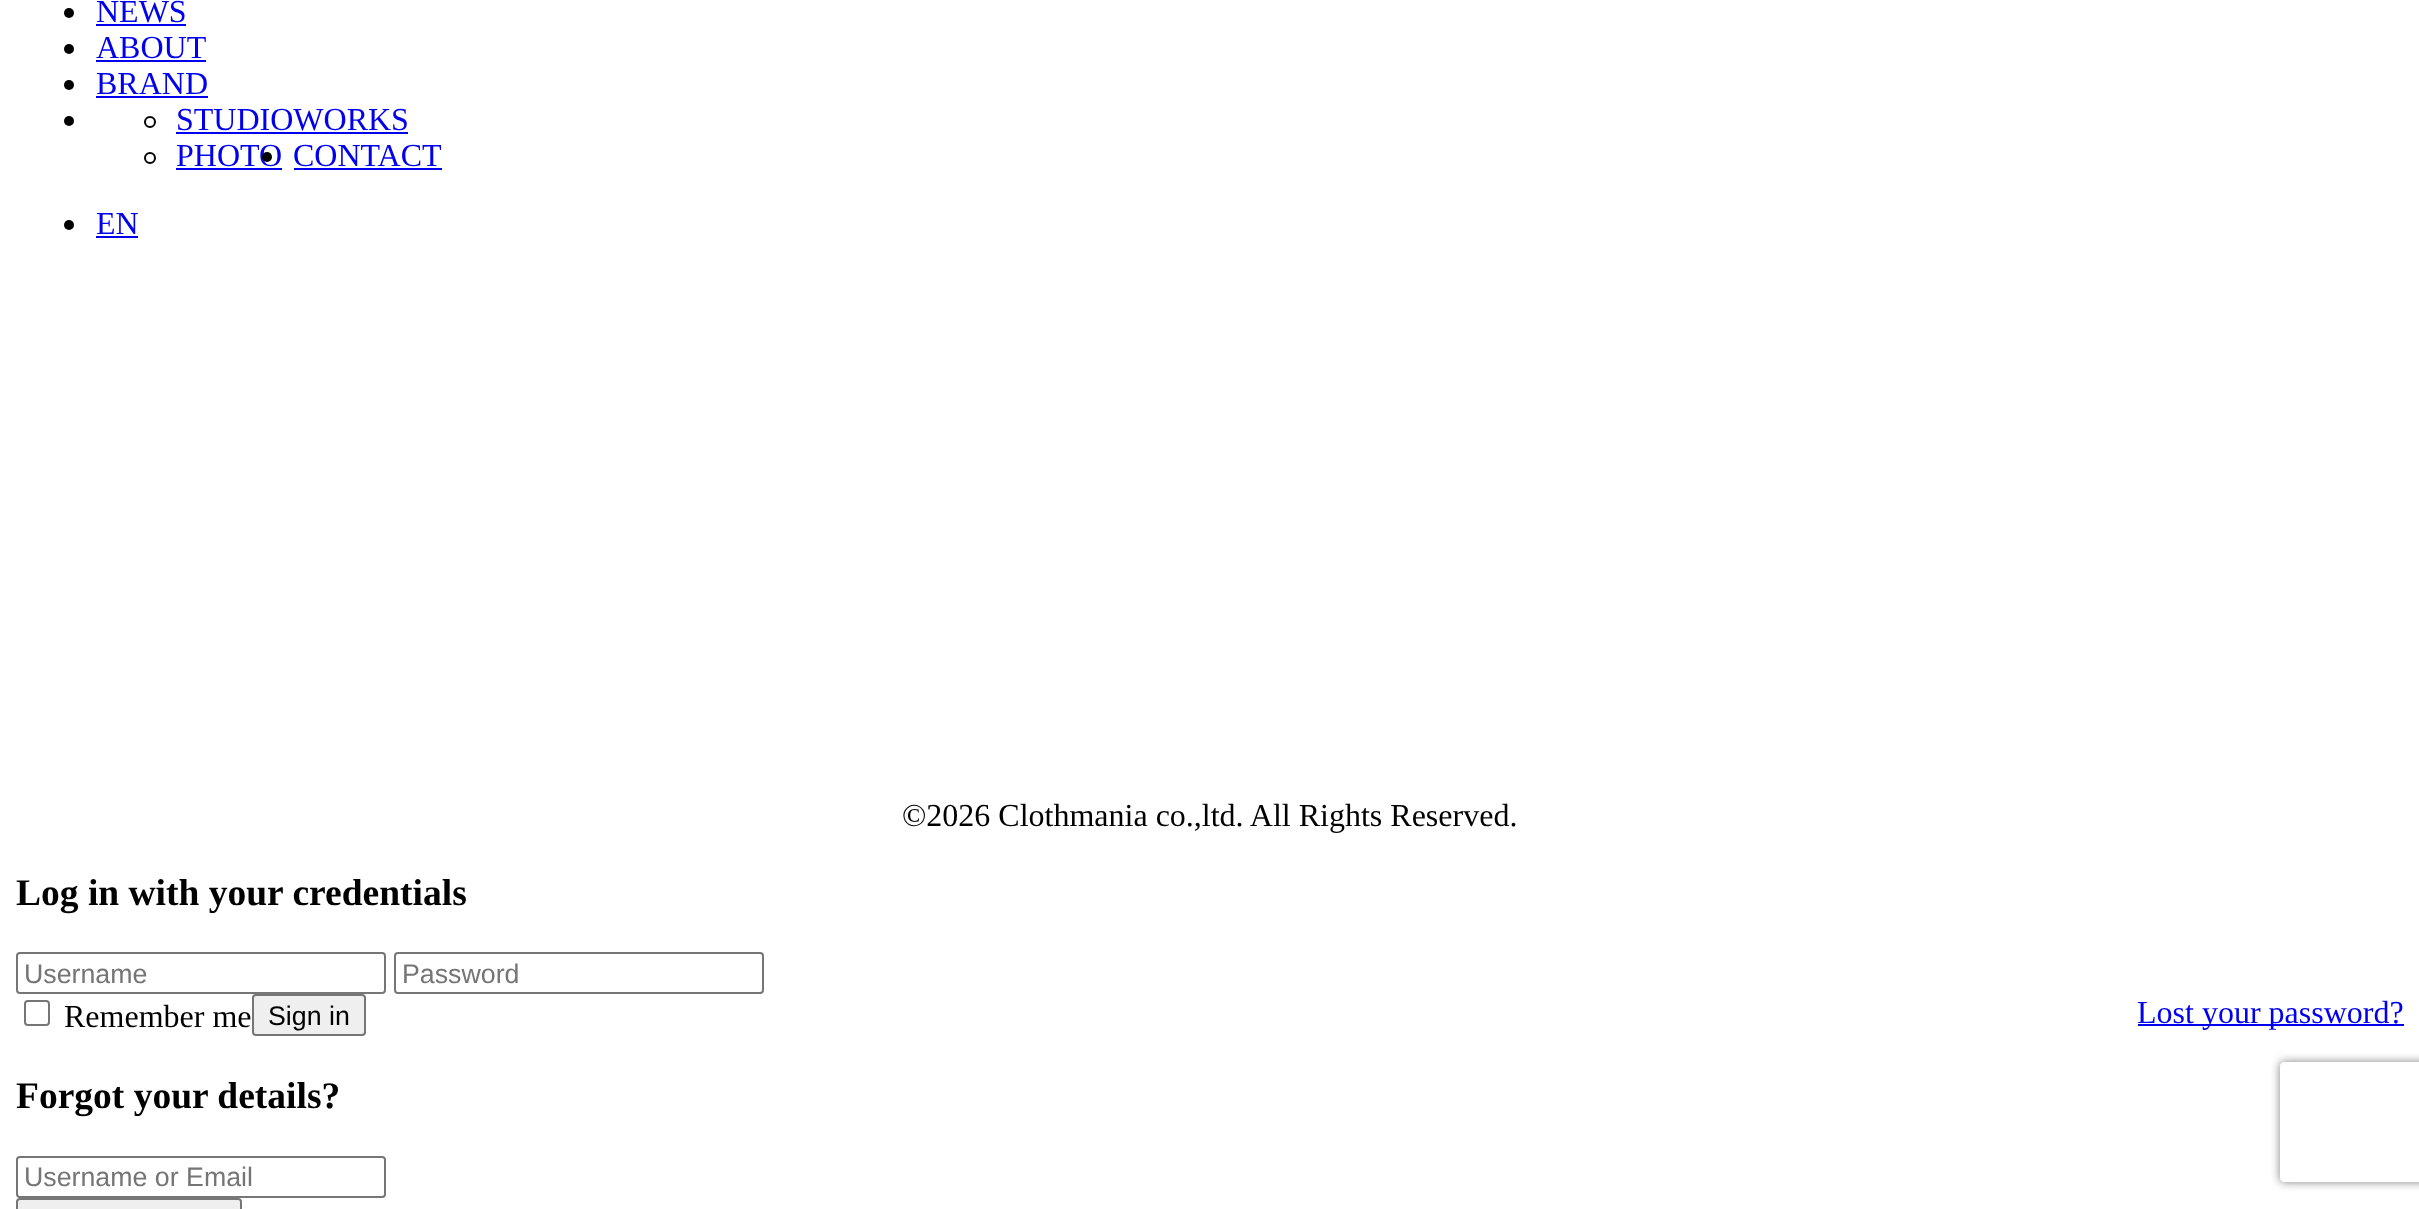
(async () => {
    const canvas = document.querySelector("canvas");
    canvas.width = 2419;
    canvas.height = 1209;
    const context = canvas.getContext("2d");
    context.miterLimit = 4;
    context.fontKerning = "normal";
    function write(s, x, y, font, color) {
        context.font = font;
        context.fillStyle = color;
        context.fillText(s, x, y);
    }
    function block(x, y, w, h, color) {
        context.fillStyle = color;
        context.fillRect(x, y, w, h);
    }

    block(0, 0, 2419, 1209, "rgb(255, 255, 255)");
    context.fillStyle = "rgb(0, 0, 0)";
    context.beginPath();
    context.arc(69, 13, 5, 0, Math.PI * 2);
    context.fill();
    write("NEWS", 96, 22, "32px Liberation Serif", "rgb(0, 0, 238)");
    block(96, 24, 90, 2, "rgb(0, 0, 238)");
    context.fillStyle = "rgb(0, 0, 0)";
    context.beginPath();
    context.arc(69, 49, 5, 0, Math.PI * 2);
    context.fill();
    write("ABOUT", 96, 58, "32px Liberation Serif", "rgb(0, 0, 238)");
    block(96, 60, 110, 2, "rgb(0, 0, 238)");
    context.fillStyle = "rgb(0, 0, 0)";
    context.beginPath();
    context.arc(69, 85, 5, 0, Math.PI * 2);
    context.fill();
    write("BRAND", 96, 94, "32px Liberation Serif", "rgb(0, 0, 238)");
    block(96, 96, 112, 2, "rgb(0, 0, 238)");
    context.fillStyle = "rgb(0, 0, 0)";
    context.beginPath();
    context.arc(69, 121, 5, 0, Math.PI * 2);
    context.fill();
    context.beginPath();
    context.arc(150, 122, 5, 0, Math.PI * 2);
    context.strokeStyle = "rgb(0, 0, 0)";
    context.lineWidth = 2;
    context.stroke();
    write("STUDIOWORKS", 176, 130, "32px Liberation Serif", "rgb(0, 0, 238)");
    block(176, 132, 232, 2, "rgb(0, 0, 238)");
    context.beginPath();
    context.arc(150, 158, 5, 0, Math.PI * 2);
    context.stroke();
    write("PHOTO", 176, 166, "32px Liberation Serif", "rgb(0, 0, 238)");
    block(176, 168, 106, 2, "rgb(0, 0, 238)");
    context.fillStyle = "rgb(0, 0, 0)";
    context.beginPath();
    context.arc(267, 157, 5, 0, Math.PI * 2);
    context.fill();
    write("CONTACT", 293, 166, "32px Liberation Serif", "rgb(0, 0, 238)");
    block(294, 168, 148, 2, "rgb(0, 0, 238)");
    context.fillStyle = "rgb(0, 0, 0)";
    context.beginPath();
    context.arc(69, 225, 5, 0, Math.PI * 2);
    context.fill();
    write("EN", 96, 234, "32px Liberation Serif", "rgb(0, 0, 238)");
    block(96, 236, 42, 2, "rgb(0, 0, 238)");
    write("©2026 Clothmania co.,ltd. All Rights Reserved.", 902, 826, "32px Liberation Serif", "rgb(0, 0, 0)");
    write("Log in with your credentials", 16, 905, "bold 37.5px Liberation Serif", "rgb(0, 0, 0)");
    context.beginPath();
    context.roundRect(17, 953, 368, 40, 3);
    context.strokeStyle = "rgb(118, 118, 118)";
    context.stroke();
    write("Username", 24, 983, "26.75px Liberation Sans", "rgb(117, 117, 117)");
    context.beginPath();
    context.roundRect(395, 953, 368, 40, 3);
    context.stroke();
    write("Password", 402, 983, "26.75px Liberation Sans", "rgb(117, 117, 117)");
    context.beginPath();
    context.roundRect(25, 1001, 24, 24, 3);
    context.stroke();
    write("Remember me", 64, 1027, "32px Liberation Serif", "rgb(0, 0, 0)");
    context.fillStyle = "rgb(239, 239, 239)";
    context.beginPath();
    context.roundRect(253, 995, 112, 40, 3);
    context.fill();
    context.stroke();
    write("Sign in", 268, 1025, "26.75px Liberation Sans", "rgb(0, 0, 0)");
    block(2138, 1024, 266, 2, "rgb(0, 0, 238)");
    write("Lost your password?", 2137, 1023, "32px Liberation Serif", "rgb(0, 0, 238)");
    write("Forgot your details?", 16, 1108, "bold 37.5px Liberation Serif", "rgb(0, 0, 0)");
    context.beginPath();
    context.roundRect(17, 1157, 368, 40, 3);
    context.stroke();
    write("Username or Email", 24, 1186, "26.75px Liberation Sans", "rgb(117, 117, 117)");
    context.fillStyle = "rgb(239, 239, 239)";
    context.beginPath();
    context.roundRect(17, 1199, 224, 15, 3);
    context.fill();
    context.stroke();
    context.save();
    context.beginPath();
    context.moveTo(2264, 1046);
    context.lineTo(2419, 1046);
    context.lineTo(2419, 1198);
    context.lineTo(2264, 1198);
    context.closePath();
    context.moveTo(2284, 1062);
    context.lineTo(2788, 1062);
    context.bezierCurveTo(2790, 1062, 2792, 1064, 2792, 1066);
    context.lineTo(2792, 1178);
    context.bezierCurveTo(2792, 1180, 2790, 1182, 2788, 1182);
    context.lineTo(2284, 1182);
    context.bezierCurveTo(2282, 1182, 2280, 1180, 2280, 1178);
    context.lineTo(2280, 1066);
    context.bezierCurveTo(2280, 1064, 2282, 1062, 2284, 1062);
    context.closePath();
    context.clip("evenodd");
    context.fillStyle = "rgb(128, 128, 128)";
    context.filter = "blur(5px)";
    context.beginPath();
    context.roundRect(2280, 1062, 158, 120, 4);
    context.fill();
    context.filter = "none";
    context.restore();
})();
